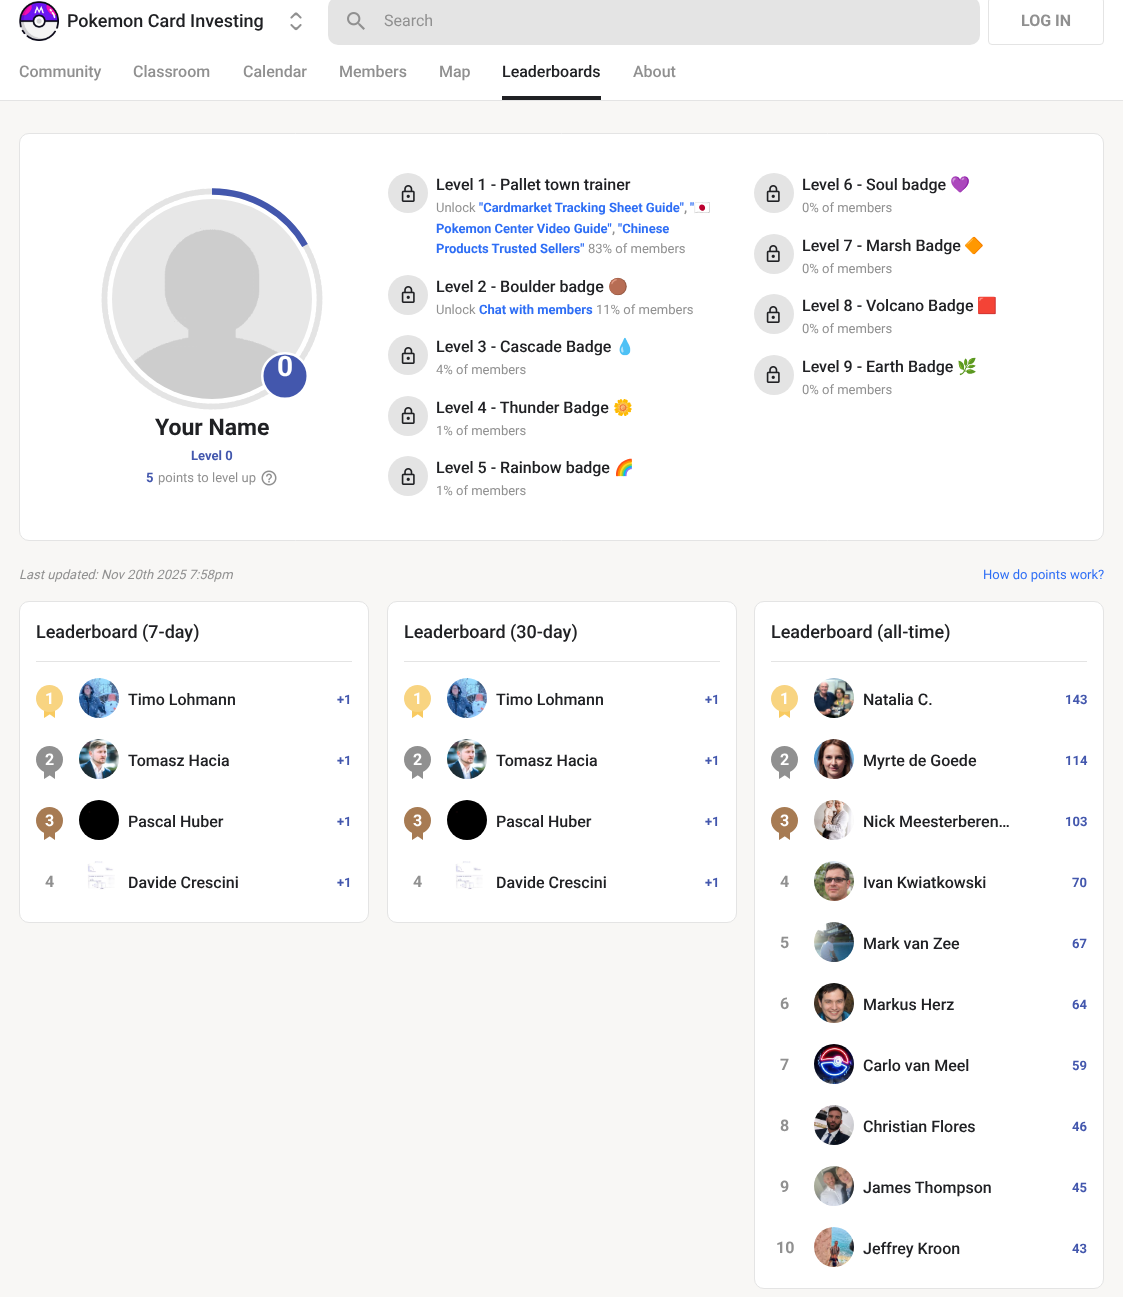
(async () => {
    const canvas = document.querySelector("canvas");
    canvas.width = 1123;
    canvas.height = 1297;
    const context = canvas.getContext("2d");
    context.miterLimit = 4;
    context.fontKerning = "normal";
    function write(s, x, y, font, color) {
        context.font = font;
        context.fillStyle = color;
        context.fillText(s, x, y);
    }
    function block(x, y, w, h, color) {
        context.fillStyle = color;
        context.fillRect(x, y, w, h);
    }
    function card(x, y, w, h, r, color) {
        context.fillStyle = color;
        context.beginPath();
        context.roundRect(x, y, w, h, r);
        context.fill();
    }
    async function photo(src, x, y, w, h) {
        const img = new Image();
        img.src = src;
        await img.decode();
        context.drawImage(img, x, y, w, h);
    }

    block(0, 0, 1123, 1297, "rgb(248, 247, 245)");
    block(0, 0, 1123, 100, "rgb(255, 255, 255)");
    block(0, 100, 1123, 1, "rgb(228, 228, 228)");
    await photo("media/1.png", 19, 1, 40, 40);
    write("Pokemon Card Investing", 67, 27, "500 18px Roboto", "rgb(32, 33, 36)");
    await photo("media/2.png", 290, 12, 12, 19);
    card(328, -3, 652, 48, 10, "rgb(228, 228, 228)");
    await photo("media/3.png", 347, 12, 18, 18);
    write("Search", 384, 26, "16px Roboto", "rgb(144, 144, 144)");
    context.beginPath();
    context.roundRect(988.5, -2.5, 115, 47, 3.5);
    context.strokeStyle = "rgb(228, 228, 228)";
    context.stroke();
    write("LOG IN", 1021, 26, "bold 16px Roboto", "rgb(144, 144, 144)");
    write("Community", 19, 77, "500 16px Roboto", "rgb(144, 144, 144)");
    write("Classroom", 133, 77, "500 16px Roboto", "rgb(144, 144, 144)");
    write("Calendar", 243, 77, "500 16px Roboto", "rgb(144, 144, 144)");
    write("Members", 339, 77, "500 16px Roboto", "rgb(144, 144, 144)");
    write("Map", 439, 77, "500 16px Roboto", "rgb(144, 144, 144)");
    block(502, 96, 99, 4, "rgb(32, 33, 36)");
    write("Leaderboards", 502, 77, "500 16px Roboto", "rgb(32, 33, 36)");
    write("About", 633, 77, "500 16px Roboto", "rgb(144, 144, 144)");
    context.fillStyle = "rgb(255, 255, 255)";
    context.beginPath();
    context.roundRect(19.5, 133.5, 1084, 407, 9.5);
    context.fill();
    context.stroke();
    await photo("media/4.png", 112, 199, 200, 200);
    context.beginPath();
    context.moveTo(212, 191.5);
    context.bezierCurveTo(271.5, 191.5, 319.5, 239.5, 319.5, 299);
    context.bezierCurveTo(319.5, 358.5, 271.5, 406.5, 212, 406.5);
    context.bezierCurveTo(152.5, 406.5, 104.5, 358.5, 104.5, 299);
    context.bezierCurveTo(104.5, 239.5, 152.5, 191.5, 212, 191.5);
    context.lineWidth = 5.9;
    context.lineCap = "round";
    context.setLineDash([2.68, 2.68]);
    context.stroke();
    context.beginPath();
    context.moveTo(212, 191.5);
    context.bezierCurveTo(251.5, 191.5, 286.5, 213, 305, 245.5);
    context.strokeStyle = "rgb(67, 87, 173)";
    context.lineWidth = 6.4;
    context.lineCap = "butt";
    context.setLineDash([]);
    context.stroke();
    context.fillStyle = "rgb(67, 87, 173)";
    context.beginPath();
    context.arc(285, 376, 22.75, 0, Math.PI * 2);
    context.fill();
    context.strokeStyle = "rgb(255, 255, 255)";
    context.lineWidth = 2.5;
    context.stroke();
    write("0", 277, 376, "bold 28px Roboto", "rgb(255, 255, 255)");
    write("Your Name", 155, 435, "bold 23px Roboto", "rgb(32, 33, 36)");
    write("Level 0", 191, 460, "bold 13px Roboto", "rgb(67, 87, 173)");
    write("5", 146, 482, "bold 13px Roboto", "rgb(67, 87, 173)");
    write("points to level up", 158, 482, "13px Roboto", "rgb(144, 144, 144)");
    await photo("media/5.png", 261, 470, 16, 16);
    context.fillStyle = "rgb(228, 228, 228)";
    context.beginPath();
    context.arc(408, 193, 20, 0, Math.PI * 2);
    context.fill();
    await photo("media/6.png", 401, 185, 14, 17);
    write("Level 1 - Pallet town trainer", 436, 190, "500 16px Roboto", "rgb(32, 33, 36)");
    write("Unlock", 436, 212, "13px Roboto", "rgb(144, 144, 144)");
    write("\"Cardmarket Tracking Sheet Guide\"", 479, 212, "bold 13px Roboto", "rgb(46, 110, 245)");
    write("\"", 690, 212, "bold 13px Roboto", "rgb(46, 110, 245)");
    write("🇯🇵", 694, 212, "bold 13px Noto Color Emoji", "rgb(46, 110, 245)");
    write(",", 684, 212, "bold 13px Roboto", "rgb(144, 144, 144)");
    write("Pokemon Center Video Guide\"", 436, 233, "bold 13px Roboto", "rgb(46, 110, 245)");
    write(",", 612, 233, "bold 13px Roboto", "rgb(144, 144, 144)");
    write("\"Chinese", 618, 233, "bold 13px Roboto", "rgb(46, 110, 245)");
    write("Products Trusted Sellers\"", 436, 253, "bold 13px Roboto", "rgb(46, 110, 245)");
    write("83% of members", 588, 253, "13px Roboto", "rgb(144, 144, 144)");
    context.fillStyle = "rgb(228, 228, 228)";
    context.beginPath();
    context.arc(408, 295, 20, 0, Math.PI * 2);
    context.fill();
    await photo("media/6.png", 401, 286, 14, 17);
    write("Level 2 - Boulder badge", 436, 292, "500 16px Roboto", "rgb(32, 33, 36)");
    write("🟤", 608, 292, "16px Noto Color Emoji", "rgb(32, 33, 36)");
    write("Unlock", 436, 314, "13px Roboto", "rgb(144, 144, 144)");
    write("Chat with members", 479, 314, "bold 13px Roboto", "rgb(46, 110, 245)");
    write("11% of members", 596, 314, "13px Roboto", "rgb(144, 144, 144)");
    context.fillStyle = "rgb(228, 228, 228)";
    context.beginPath();
    context.arc(408, 355, 20, 0, Math.PI * 2);
    context.fill();
    await photo("media/6.png", 401, 347, 14, 17);
    write("Level 3 - Cascade Badge", 436, 352, "500 16px Roboto", "rgb(32, 33, 36)");
    write("💧", 615, 352, "16px Noto Color Emoji", "rgb(32, 33, 36)");
    write("4% of members", 436, 374, "13px Roboto", "rgb(144, 144, 144)");
    context.fillStyle = "rgb(228, 228, 228)";
    context.beginPath();
    context.arc(408, 416, 20, 0, Math.PI * 2);
    context.fill();
    await photo("media/6.png", 401, 407, 14, 17);
    write("Level 4 - Thunder Badge", 436, 413, "500 16px Roboto", "rgb(32, 33, 36)");
    write("🌼", 613, 413, "16px Noto Color Emoji", "rgb(32, 33, 36)");
    write("1% of members", 436, 435, "13px Roboto", "rgb(144, 144, 144)");
    context.fillStyle = "rgb(228, 228, 228)";
    context.beginPath();
    context.arc(408, 476, 20, 0, Math.PI * 2);
    context.fill();
    await photo("media/6.png", 401, 468, 14, 17);
    write("Level 5 - Rainbow badge", 436, 473, "500 16px Roboto", "rgb(32, 33, 36)");
    write("🌈", 614, 473, "16px Noto Color Emoji", "rgb(32, 33, 36)");
    write("1% of members", 436, 495, "13px Roboto", "rgb(144, 144, 144)");
    context.fillStyle = "rgb(228, 228, 228)";
    context.beginPath();
    context.arc(774, 193, 20, 0, Math.PI * 2);
    context.fill();
    await photo("media/6.png", 766, 185, 14, 17);
    write("Level 6 - Soul badge", 802, 190, "500 16px Roboto", "rgb(32, 33, 36)");
    write("💜", 950, 190, "16px Noto Color Emoji", "rgb(32, 33, 36)");
    write("0% of members", 802, 212, "13px Roboto", "rgb(144, 144, 144)");
    context.fillStyle = "rgb(228, 228, 228)";
    context.beginPath();
    context.arc(774, 254, 20, 0, Math.PI * 2);
    context.fill();
    await photo("media/6.png", 766, 245, 14, 17);
    write("Level 7 - Marsh Badge", 802, 251, "500 16px Roboto", "rgb(32, 33, 36)");
    write("🔶", 964, 251, "16px Noto Color Emoji", "rgb(32, 33, 36)");
    write("0% of members", 802, 273, "13px Roboto", "rgb(144, 144, 144)");
    context.fillStyle = "rgb(228, 228, 228)";
    context.beginPath();
    context.arc(774, 314, 20, 0, Math.PI * 2);
    context.fill();
    await photo("media/6.png", 766, 306, 14, 17);
    write("Level 8 - Volcano Badge", 802, 311, "500 16px Roboto", "rgb(32, 33, 36)");
    write("🟥", 977, 311, "16px Noto Color Emoji", "rgb(32, 33, 36)");
    write("0% of members", 802, 333, "13px Roboto", "rgb(144, 144, 144)");
    context.fillStyle = "rgb(228, 228, 228)";
    context.beginPath();
    context.arc(774, 375, 20, 0, Math.PI * 2);
    context.fill();
    await photo("media/6.png", 766, 366, 14, 17);
    write("Level 9 - Earth Badge", 802, 372, "500 16px Roboto", "rgb(32, 33, 36)");
    write("🌿", 957, 372, "16px Noto Color Emoji", "rgb(32, 33, 36)");
    write("0% of members", 802, 394, "13px Roboto", "rgb(144, 144, 144)");
    write("Last updated: Nov 20th 2025 7:58pm", 19, 579, "italic 13px Roboto", "rgb(144, 144, 144)");
    write("How do points work?", 983, 579, "13px Roboto", "rgb(46, 110, 245)");
    context.fillStyle = "rgb(255, 255, 255)";
    context.beginPath();
    context.roundRect(19.5, 601.5, 349, 321, 9.5);
    context.fill();
    context.strokeStyle = "rgb(228, 228, 228)";
    context.lineWidth = 1;
    context.stroke();
    block(36, 661, 316, 1, "rgb(228, 228, 228)");
    write("Leaderboard (7-day)", 36, 638, "500 18px Roboto", "rgb(32, 33, 36)");
    await photo("media/8.png", 44, 710, 11, 8);
    context.fillStyle = "rgb(248, 212, 129)";
    context.beginPath();
    context.arc(49.5, 698.5, 13.5, 0, Math.PI * 2);
    context.fill();
    write("1", 45, 704, "bold 16px Roboto", "rgb(255, 255, 255)");
    await photo("media/7.png", 79, 678, 40, 40);
    write("Timo Lohmann", 128, 705, "500 16px Roboto", "rgb(32, 33, 36)");
    write("+1", 337, 704, "bold 13px Roboto", "rgb(67, 87, 173)");
    await photo("media/10.png", 44, 771, 11, 8);
    context.fillStyle = "rgb(144, 144, 144)";
    context.beginPath();
    context.arc(49.5, 759.5, 13.5, 0, Math.PI * 2);
    context.fill();
    write("2", 45, 765, "bold 16px Roboto", "rgb(255, 255, 255)");
    await photo("media/9.png", 79, 739, 40, 40);
    write("Tomasz Hacia", 128, 766, "500 16px Roboto", "rgb(32, 33, 36)");
    write("+1", 337, 765, "bold 13px Roboto", "rgb(67, 87, 173)");
    await photo("media/12.png", 44, 832, 11, 8);
    context.fillStyle = "rgb(167, 123, 83)";
    context.beginPath();
    context.arc(49.5, 820.5, 13.5, 0, Math.PI * 2);
    context.fill();
    write("3", 45, 826, "bold 16px Roboto", "rgb(255, 255, 255)");
    await photo("media/11.png", 79, 800, 40, 40);
    write("Pascal Huber", 128, 827, "500 16px Roboto", "rgb(32, 33, 36)");
    write("+1", 337, 826, "bold 13px Roboto", "rgb(67, 87, 173)");
    write("4", 45, 887, "bold 16px Roboto", "rgb(144, 144, 144)");
    await photo("media/13.png", 87, 861, 28, 29);
    write("Davide Crescini", 128, 888, "500 16px Roboto", "rgb(32, 33, 36)");
    write("+1", 337, 887, "bold 13px Roboto", "rgb(67, 87, 173)");
    context.fillStyle = "rgb(255, 255, 255)";
    context.beginPath();
    context.roundRect(387.5, 601.5, 349, 321, 9.5);
    context.fill();
    context.stroke();
    block(404, 661, 316, 1, "rgb(228, 228, 228)");
    write("Leaderboard (30-day)", 404, 638, "500 18px Roboto", "rgb(32, 33, 36)");
    await photo("media/8.png", 412, 710, 11, 8);
    context.fillStyle = "rgb(248, 212, 129)";
    context.beginPath();
    context.arc(417.5, 698.5, 13.5, 0, Math.PI * 2);
    context.fill();
    write("1", 413, 704, "bold 16px Roboto", "rgb(255, 255, 255)");
    await photo("media/14.png", 447, 678, 40, 40);
    write("Timo Lohmann", 496, 705, "500 16px Roboto", "rgb(32, 33, 36)");
    write("+1", 705, 704, "bold 13px Roboto", "rgb(67, 87, 173)");
    await photo("media/10.png", 412, 771, 11, 8);
    context.fillStyle = "rgb(144, 144, 144)";
    context.beginPath();
    context.arc(417.5, 759.5, 13.5, 0, Math.PI * 2);
    context.fill();
    write("2", 413, 765, "bold 16px Roboto", "rgb(255, 255, 255)");
    await photo("media/15.png", 447, 739, 40, 40);
    write("Tomasz Hacia", 496, 766, "500 16px Roboto", "rgb(32, 33, 36)");
    write("+1", 705, 765, "bold 13px Roboto", "rgb(67, 87, 173)");
    await photo("media/12.png", 412, 832, 11, 8);
    context.fillStyle = "rgb(167, 123, 83)";
    context.beginPath();
    context.arc(417.5, 820.5, 13.5, 0, Math.PI * 2);
    context.fill();
    write("3", 413, 826, "bold 16px Roboto", "rgb(255, 255, 255)");
    await photo("media/16.png", 447, 800, 40, 40);
    write("Pascal Huber", 496, 827, "500 16px Roboto", "rgb(32, 33, 36)");
    write("+1", 705, 826, "bold 13px Roboto", "rgb(67, 87, 173)");
    write("4", 413, 887, "bold 16px Roboto", "rgb(144, 144, 144)");
    await photo("media/17.png", 455, 861, 28, 29);
    write("Davide Crescini", 496, 888, "500 16px Roboto", "rgb(32, 33, 36)");
    write("+1", 705, 887, "bold 13px Roboto", "rgb(67, 87, 173)");
    context.fillStyle = "rgb(255, 255, 255)";
    context.beginPath();
    context.roundRect(754.5, 601.5, 349, 687, 9.5);
    context.fill();
    context.stroke();
    block(771, 661, 316, 1, "rgb(228, 228, 228)");
    write("Leaderboard (all-time)", 771, 638, "500 18px Roboto", "rgb(32, 33, 36)");
    await photo("media/8.png", 779, 710, 11, 8);
    context.fillStyle = "rgb(248, 212, 129)";
    context.beginPath();
    context.arc(784.5, 698.5, 13.5, 0, Math.PI * 2);
    context.fill();
    write("1", 780, 704, "bold 16px Roboto", "rgb(255, 255, 255)");
    await photo("media/18.png", 814, 678, 40, 40);
    write("Natalia C.", 863, 705, "500 16px Roboto", "rgb(32, 33, 36)");
    write("143", 1065, 704, "bold 13px Roboto", "rgb(67, 87, 173)");
    await photo("media/10.png", 779, 771, 11, 8);
    context.fillStyle = "rgb(144, 144, 144)";
    context.beginPath();
    context.arc(784.5, 759.5, 13.5, 0, Math.PI * 2);
    context.fill();
    write("2", 780, 765, "bold 16px Roboto", "rgb(255, 255, 255)");
    await photo("media/19.png", 814, 739, 40, 40);
    write("Myrte de Goede", 863, 766, "500 16px Roboto", "rgb(32, 33, 36)");
    write("114", 1065, 765, "bold 13px Roboto", "rgb(67, 87, 173)");
    await photo("media/12.png", 779, 832, 11, 8);
    context.fillStyle = "rgb(167, 123, 83)";
    context.beginPath();
    context.arc(784.5, 820.5, 13.5, 0, Math.PI * 2);
    context.fill();
    write("3", 780, 826, "bold 16px Roboto", "rgb(255, 255, 255)");
    await photo("media/20.png", 814, 800, 40, 40);
    write("Nick Meesterberen…", 863, 827, "500 16px Roboto", "rgb(32, 33, 36)");
    write("103", 1065, 826, "bold 13px Roboto", "rgb(67, 87, 173)");
    write("4", 780, 887, "bold 16px Roboto", "rgb(144, 144, 144)");
    await photo("media/21.png", 814, 861, 40, 40);
    write("Ivan Kwiatkowski", 863, 888, "500 16px Roboto", "rgb(32, 33, 36)");
    write("70", 1072, 887, "bold 13px Roboto", "rgb(67, 87, 173)");
    write("5", 780, 948, "bold 16px Roboto", "rgb(144, 144, 144)");
    await photo("media/22.png", 814, 922, 40, 40);
    write("Mark van Zee", 863, 949, "500 16px Roboto", "rgb(32, 33, 36)");
    write("67", 1072, 948, "bold 13px Roboto", "rgb(67, 87, 173)");
    write("6", 780, 1009, "bold 16px Roboto", "rgb(144, 144, 144)");
    await photo("media/23.png", 814, 983, 40, 40);
    write("Markus Herz", 863, 1010, "500 16px Roboto", "rgb(32, 33, 36)");
    write("64", 1072, 1009, "bold 13px Roboto", "rgb(67, 87, 173)");
    write("7", 780, 1070, "bold 16px Roboto", "rgb(144, 144, 144)");
    await photo("media/24.png", 814, 1044, 40, 40);
    write("Carlo van Meel", 863, 1071, "500 16px Roboto", "rgb(32, 33, 36)");
    write("59", 1072, 1070, "bold 13px Roboto", "rgb(67, 87, 173)");
    write("8", 780, 1131, "bold 16px Roboto", "rgb(144, 144, 144)");
    await photo("media/25.png", 814, 1105, 40, 40);
    write("Christian Flores", 863, 1132, "500 16px Roboto", "rgb(32, 33, 36)");
    write("46", 1072, 1131, "bold 13px Roboto", "rgb(67, 87, 173)");
    write("9", 780, 1192, "bold 16px Roboto", "rgb(144, 144, 144)");
    await photo("media/26.png", 814, 1166, 40, 40);
    write("James Thompson", 863, 1193, "500 16px Roboto", "rgb(32, 33, 36)");
    write("45", 1072, 1192, "bold 13px Roboto", "rgb(67, 87, 173)");
    write("10", 776, 1253, "bold 16px Roboto", "rgb(144, 144, 144)");
    await photo("media/27.png", 814, 1227, 40, 40);
    write("Jeffrey Kroon", 863, 1254, "500 16px Roboto", "rgb(32, 33, 36)");
    write("43", 1072, 1253, "bold 13px Roboto", "rgb(67, 87, 173)");
})();
